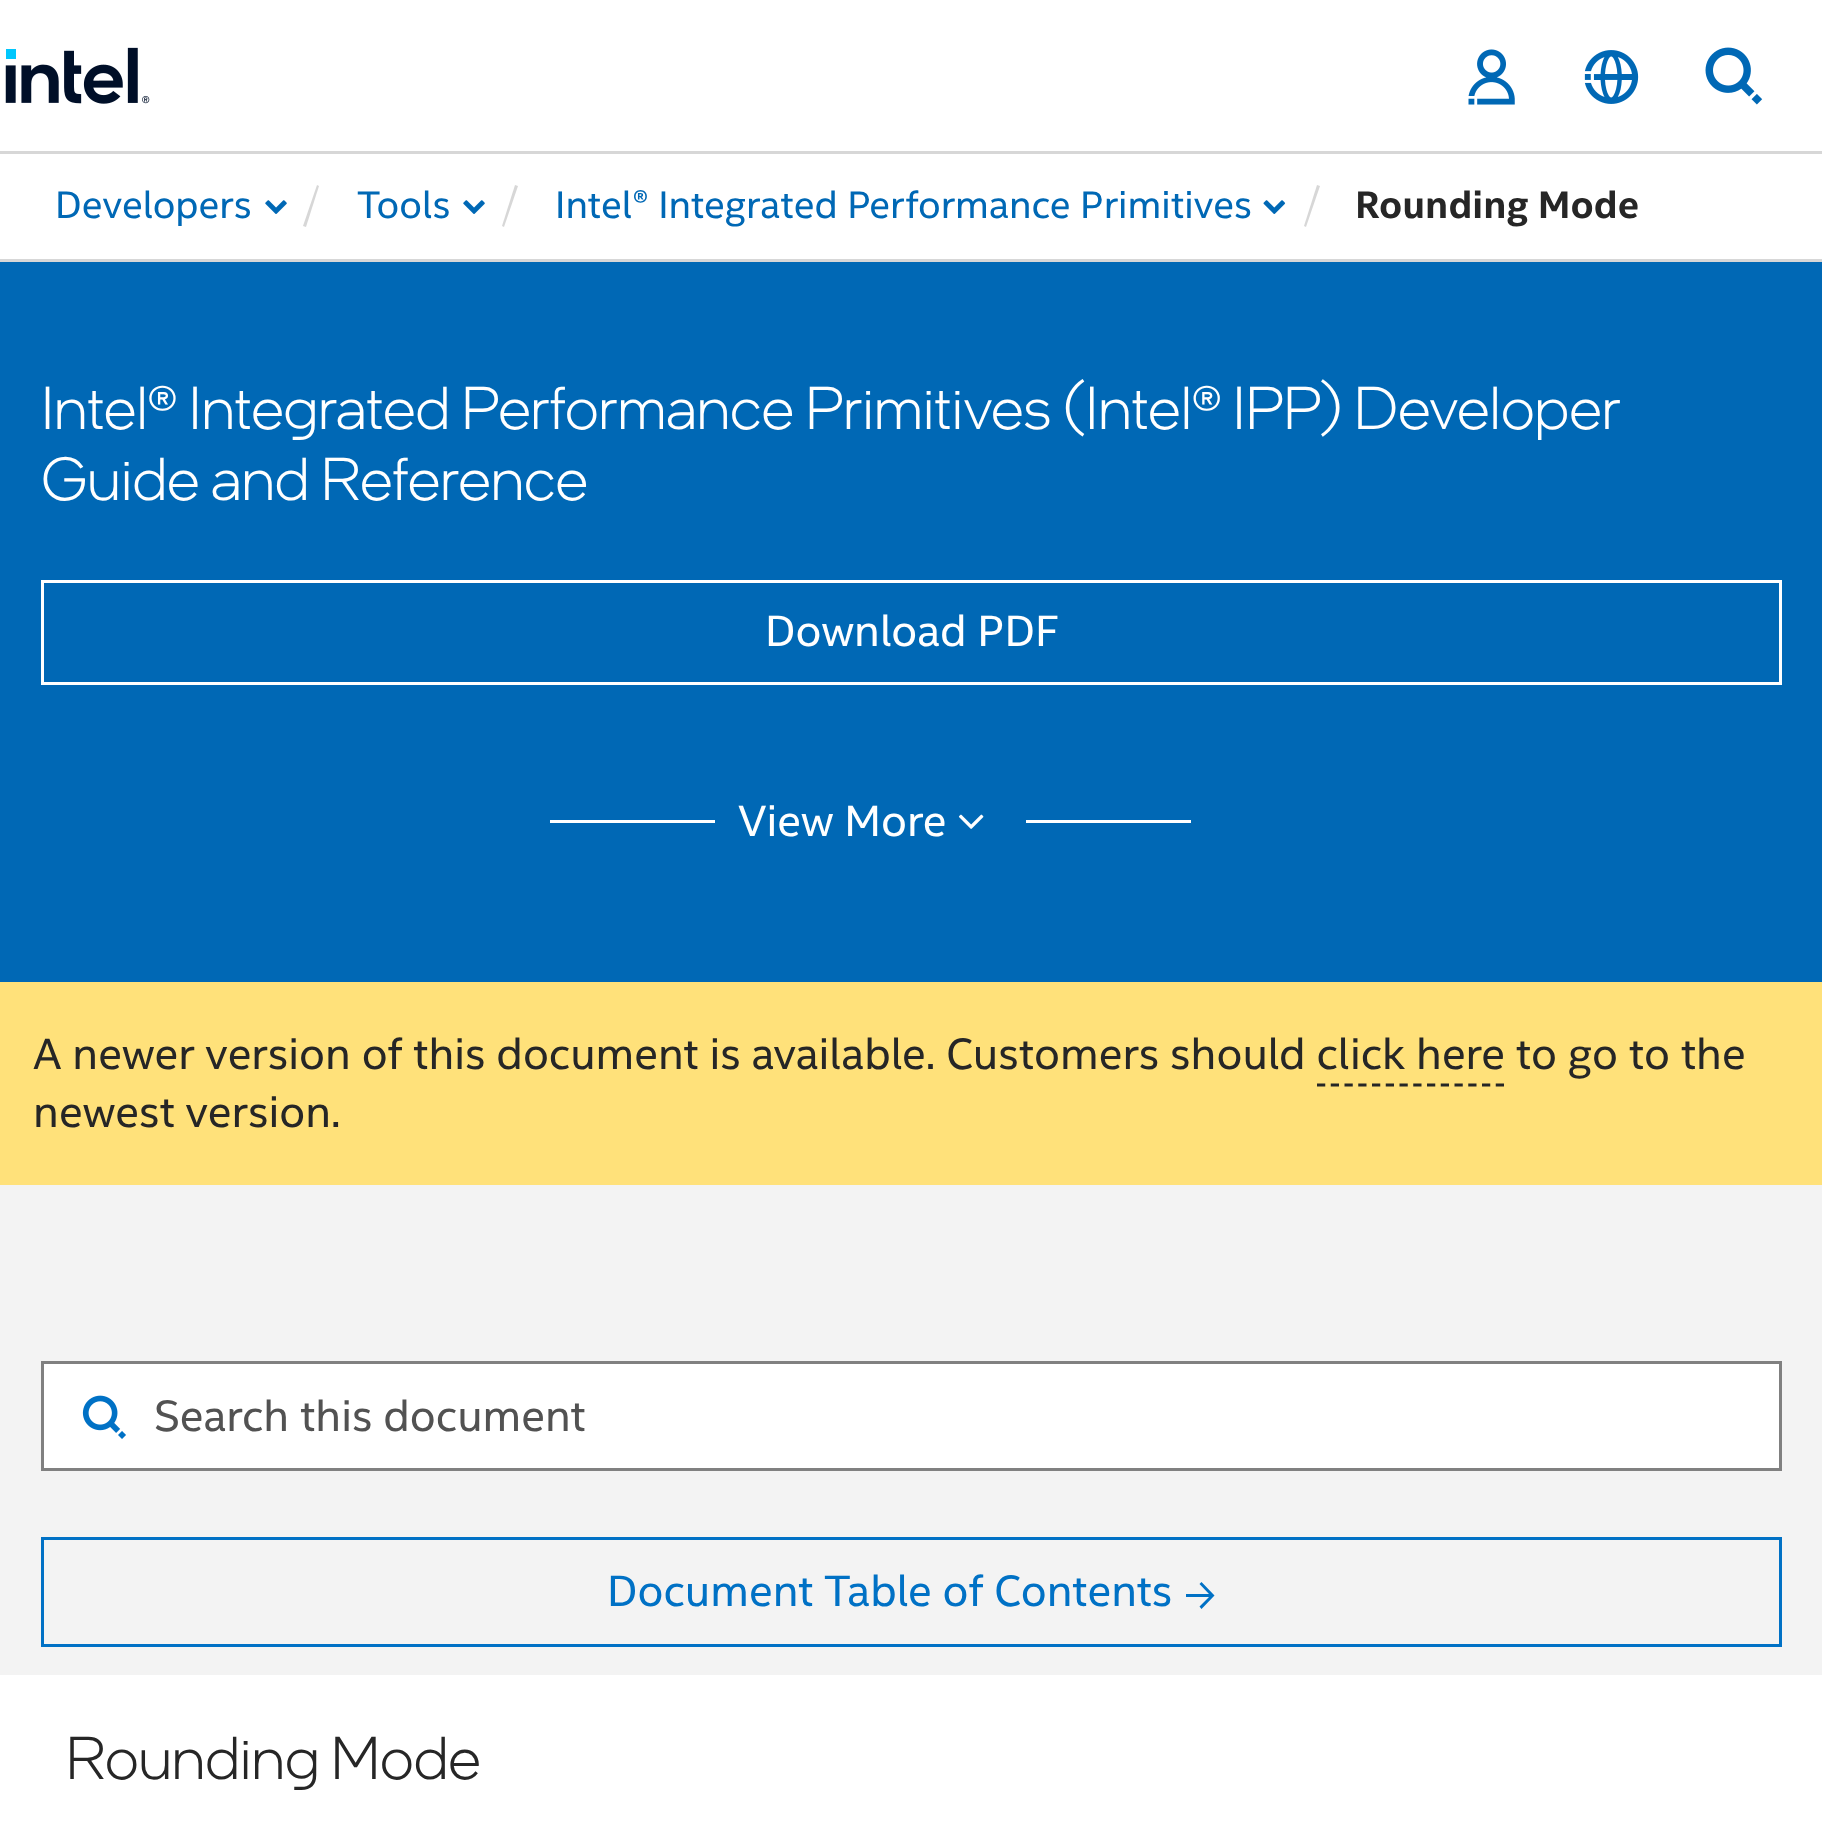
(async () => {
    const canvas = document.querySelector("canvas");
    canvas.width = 1822;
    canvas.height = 1845;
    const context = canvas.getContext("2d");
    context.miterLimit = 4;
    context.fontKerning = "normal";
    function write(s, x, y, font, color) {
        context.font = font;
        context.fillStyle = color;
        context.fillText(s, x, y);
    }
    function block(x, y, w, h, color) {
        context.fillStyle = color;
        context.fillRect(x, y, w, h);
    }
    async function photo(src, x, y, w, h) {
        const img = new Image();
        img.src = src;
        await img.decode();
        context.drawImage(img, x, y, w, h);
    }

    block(0, 0, 1822, 1845, "rgb(255, 255, 255)");
    block(0, 151, 1822, 3, "rgb(215, 215, 215)");
    await photo("media/1.png", 5, 47, 145, 57);
    await photo("media/2.png", 1468, 49, 47, 56);
    await photo("media/3.png", 1584, 50, 55, 54);
    await photo("media/4.png", 1705, 47, 58, 58);
    block(0, 259, 1822, 3, "rgb(215, 215, 215)");
    write("Developers", 55, 218, "38.5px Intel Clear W", "rgb(0, 104, 181)");
    await photo("media/5.png", 265, 200, 22, 14);
    context.fillStyle = "rgb(215, 215, 215)";
    context.beginPath();
    context.moveTo(317, 185);
    context.lineTo(319, 186);
    context.lineTo(306, 227);
    context.lineTo(303, 226);
    context.closePath();
    context.fill();
    write("Tools", 357, 218, "38.5px Intel Clear W", "rgb(0, 104, 181)");
    await photo("media/5.png", 463, 200, 22, 14);
    context.fillStyle = "rgb(215, 215, 215)";
    context.beginPath();
    context.moveTo(515, 185);
    context.lineTo(518, 186);
    context.lineTo(504, 227);
    context.lineTo(502, 226);
    context.closePath();
    context.fill();
    write("Intel® Integrated Performance Primitives", 555, 218, "38.5px Intel Clear W", "rgb(0, 104, 181)");
    await photo("media/6.png", 1263, 200, 23, 14);
    context.fillStyle = "rgb(215, 215, 215)";
    context.beginPath();
    context.moveTo(1317, 185);
    context.lineTo(1320, 186);
    context.lineTo(1306, 227);
    context.lineTo(1304, 226);
    context.closePath();
    context.fill();
    write("Rounding Mode", 1355, 218, "bold 38.5px Intel Clear W", "rgb(38, 38, 38)");
    block(0, 262, 1822, 720, "rgb(0, 104, 181)");
    write("Intel® Integrated Performance Primitives (Intel® IPP) Developer", 41, 429, "300 60.5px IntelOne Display", "rgb(255, 255, 255)");
    write("Guide and Reference", 41, 500, "300 60.5px IntelOne Display", "rgb(255, 255, 255)");
    context.strokeStyle = "rgb(255, 255, 255)";
    context.lineWidth = 3;
    context.strokeRect(42.5, 581.5, 1738, 102);
    write("Download PDF", 765, 646, "44px Intel Clear W", "rgb(255, 255, 255)");
    block(550, 820, 165, 3, "rgb(255, 255, 255)");
    write("View More", 738, 836, "44px Intel Clear W", "rgb(255, 255, 255)");
    await photo("media/7.png", 958, 814, 26, 15);
    block(1026, 820, 165, 3, "rgb(255, 255, 255)");
    block(0, 982, 1822, 203, "rgb(255, 225, 122)");
    write("A newer version of this document is available. Customers should click here to go to the", 33, 1069, "44px Intel Clear W", "rgb(38, 38, 38)");
    context.beginPath();
    context.moveTo(1317, 1085);
    context.lineTo(1504, 1085);
    context.strokeStyle = "rgb(38, 38, 38)";
    context.lineWidth = 2.8;
    context.setLineDash([8.25, 5.5]);
    context.stroke();
    write("newest version.", 33, 1127, "44px Intel Clear W", "rgb(38, 38, 38)");
    block(0, 1185, 1822, 490, "rgb(243, 243, 243)");
    context.fillStyle = "rgb(255, 255, 255)";
    context.beginPath();
    context.rect(42.5, 1362.5, 1738, 107);
    context.fill();
    context.strokeStyle = "rgb(128, 128, 128)";
    context.lineWidth = 3;
    context.setLineDash([]);
    context.stroke();
    await photo("media/8.png", 82, 1395, 44, 44);
    write("Search this document", 154, 1431, "44px Intel Clear W", "rgb(82, 82, 82)");
    context.strokeStyle = "rgb(0, 113, 197)";
    context.strokeRect(42.5, 1538.5, 1738, 107);
    write("Document Table of Contents", 607, 1606, "44px Intel Clear W", "rgb(0, 113, 197)");
    context.beginPath();
    context.moveTo(1199.5, 1584);
    context.lineTo(1201.5, 1582);
    context.lineTo(1214.5, 1595.5);
    context.lineTo(1201.5, 1609);
    context.lineTo(1199.5, 1606.5);
    context.lineTo(1209, 1597);
    context.lineTo(1186, 1597);
    context.lineTo(1186, 1594);
    context.lineTo(1209, 1594);
    context.closePath();
    context.fill();
    write("Rounding Mode", 66, 1779, "300 60.5px IntelOne Display", "rgb(38, 38, 38)");
})();
